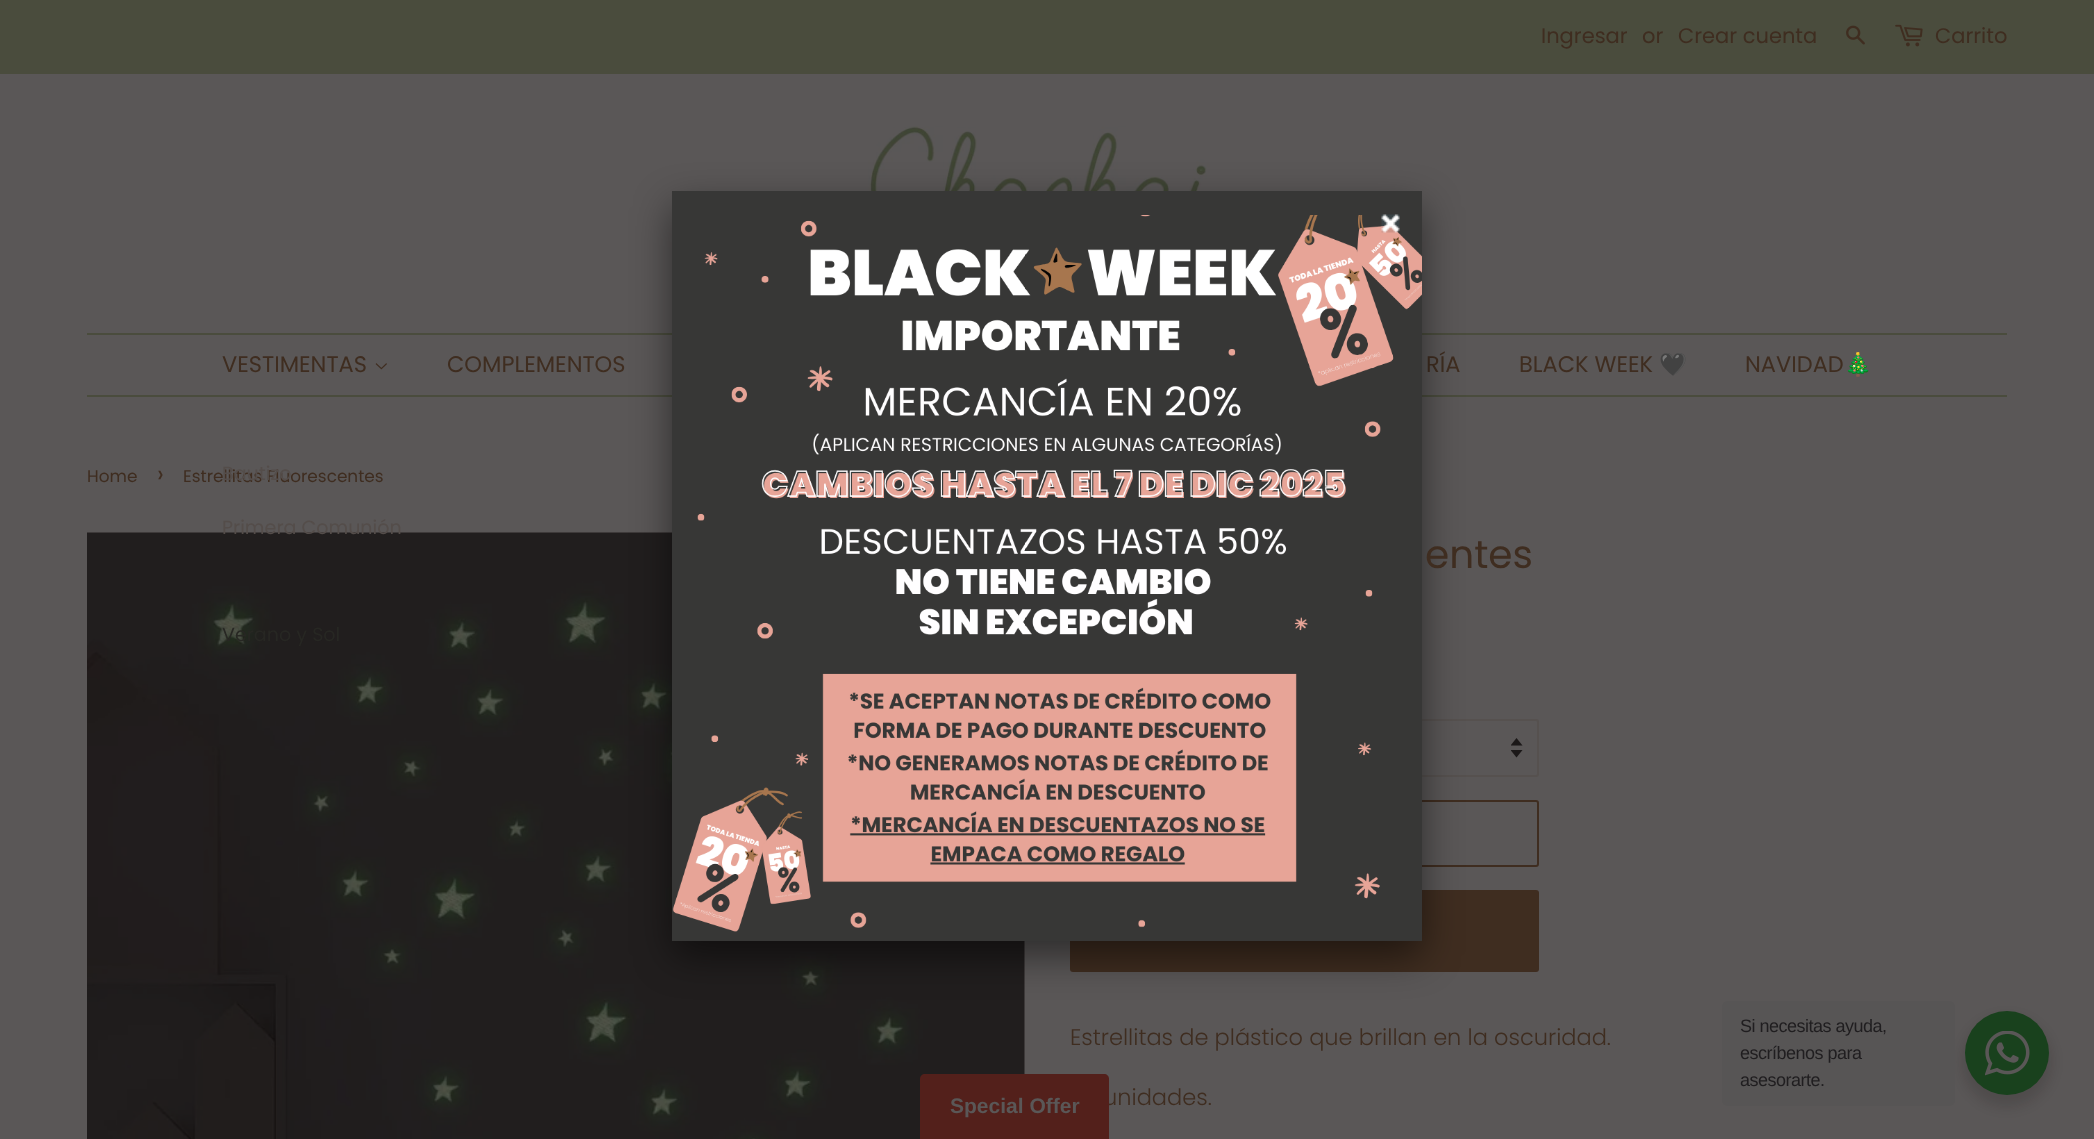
(async () => {
    const canvas = document.querySelector("canvas");
    canvas.width = 2094;
    canvas.height = 1139;
    const context = canvas.getContext("2d");
    context.miterLimit = 4;
    context.fontKerning = "normal";
    function write(s, x, y, font, color) {
        context.font = font;
        context.fillStyle = color;
        context.fillText(s, x, y);
    }
    function block(x, y, w, h, color) {
        context.fillStyle = color;
        context.fillRect(x, y, w, h);
    }
    function card(x, y, w, h, r, color) {
        context.fillStyle = color;
        context.beginPath();
        context.roundRect(x, y, w, h, r);
        context.fill();
    }
    async function photo(src, x, y, w, h) {
        const img = new Image();
        img.src = src;
        await img.decode();
        context.drawImage(img, x, y, w, h);
    }

    block(0, 0, 2094, 1139, "rgb(90, 87, 87)");
    block(0, 0, 2094, 74, "rgb(74, 76, 61)");
    write("Ingresar", 1541, 43, "21px Poppins", "rgb(63, 45, 32)");
    write("or", 1642, 43, "21px Poppins", "rgb(63, 45, 32)");
    write("Crear cuenta", 1678, 43, "21px Poppins", "rgb(63, 45, 32)");
    await photo("media/1.png", 1846, 25, 19, 20);
    await photo("media/2.png", 1895, 24, 28, 23);
    write("Carrito", 1935, 43, "21px Poppins", "rgb(63, 45, 32)");
    await photo("media/3.png", 868, 126, 350, 65);
    block(87, 333, 1920, 2, "rgb(74, 76, 61)");
    block(87, 395, 1920, 2, "rgb(74, 76, 61)");
    write("VESTIMENTAS", 222, 372, "22.5px Poppins", "rgb(63, 45, 32)");
    await photo("media/4.png", 375, 363, 12, 7);
    write("Estrellitas Fluorescentes", 183, 482, "16.9px Poppins", "rgb(63, 45, 32)");
    write("Bautizo", 222, 480, "19.1px Poppins", "rgb(84, 77, 74)");
    await photo("media/7.png", 87, 532, 938, 607);
    write("Primera Comunión", 222, 534, "19.1px Poppins", "rgb(84, 77, 74)");
    write("Verano y Sol", 222, 641, "19.1px Poppins", "rgb(39, 39, 35)");
    write("COMPLEMENTOS", 447, 372, "22.5px Poppins", "rgb(63, 45, 32)");
    write("RÍA", 1426, 372, "22.5px Poppins", "rgb(63, 45, 32)");
    write("BLACK WEEK", 1519, 372, "22.5px Poppins", "rgb(63, 45, 32)");
    write("🖤", 1659, 372, "22.5px Noto Color Emoji", "rgb(63, 45, 32)");
    write("NAVIDAD", 1745, 372, "22.5px Poppins", "rgb(63, 45, 32)");
    write("🎄", 1844, 372, "22.5px Noto Color Emoji", "rgb(63, 45, 32)");
    await photo("media/8.png", 1511, 738, 12, 20);
    context.beginPath();
    context.roundRect(1071, 720, 467, 56, 2);
    context.strokeStyle = "rgb(86, 81, 79)";
    context.lineWidth = 2;
    context.stroke();
    context.beginPath();
    context.roundRect(1071, 801, 467, 65, 2);
    context.strokeStyle = "rgb(63, 45, 32)";
    context.stroke();
    card(1070, 890, 469, 82, 3, "rgb(63, 45, 32)");
    context.fillStyle = "rgba(0, 0, 0, 0.5)";
    context.filter = "blur(19px)";
    context.beginPath();
    context.roundRect(672, 206, 750, 750, 6);
    context.fill();
    context.filter = "none";
    await photo("media/5.png", 672, 215, 750, 726);
    block(672, 191, 750, 24, "rgb(55, 55, 54)");
    await photo("media/6.png", 1381, 214, 19, 19);
    write("Home", 87, 482, "16.9px Poppins", "rgb(63, 45, 32)");
    write("›", 157, 482, "24px Poppins", "rgb(63, 45, 32)");
    write("entes", 1425, 568, "39px Poppins", "rgb(63, 45, 32)");
    write("Estrellitas de plástico que brillan en la oscuridad.", 1070, 1045, "300 22.5px Poppins", "rgb(63, 45, 32)");
    write("unidades.", 1103, 1105, "300 22.5px Poppins", "rgb(63, 45, 32)");
    context.fillStyle = "rgba(11, 8, 8, 0.14)";
    context.filter = "blur(6px)";
    context.beginPath();
    context.roundRect(1962, 1017, 90, 90, 45);
    context.fill();
    context.filter = "none";
    card(1722, 1001, 233, 105, 6, "rgb(87, 85, 85)");
    context.letterSpacing = "-0.5px";
    write("Si necesitas ayuda,", 1740, 1032, "18px Liberation Sans", "rgb(32, 30, 32)");
    write("escríbenos para", 1740, 1059, "18px Liberation Sans", "rgb(32, 30, 32)");
    write("asesorarte.", 1740, 1086, "18px Liberation Sans", "rgb(32, 30, 32)");
    context.fillStyle = "rgb(25, 65, 29)";
    context.beginPath();
    context.arc(2007, 1053, 42, 0, Math.PI * 2);
    context.fill();
    await photo("media/9.png", 1985, 1031, 45, 45);
    context.fillStyle = "rgb(83, 32, 27)";
    context.beginPath();
    context.moveTo(925, 1074);
    context.lineTo(1104, 1074);
    context.bezierCurveTo(1107, 1074, 1109, 1076, 1109, 1079);
    context.lineTo(1109, 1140);
    context.lineTo(920, 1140);
    context.lineTo(920, 1079);
    context.bezierCurveTo(920, 1076, 922, 1074, 925, 1074);
    context.closePath();
    context.fill();
    context.letterSpacing = "0px";
    write("Special Offer", 950, 1113, "bold 21px Liberation Sans", "rgb(90, 87, 87)");
})();
